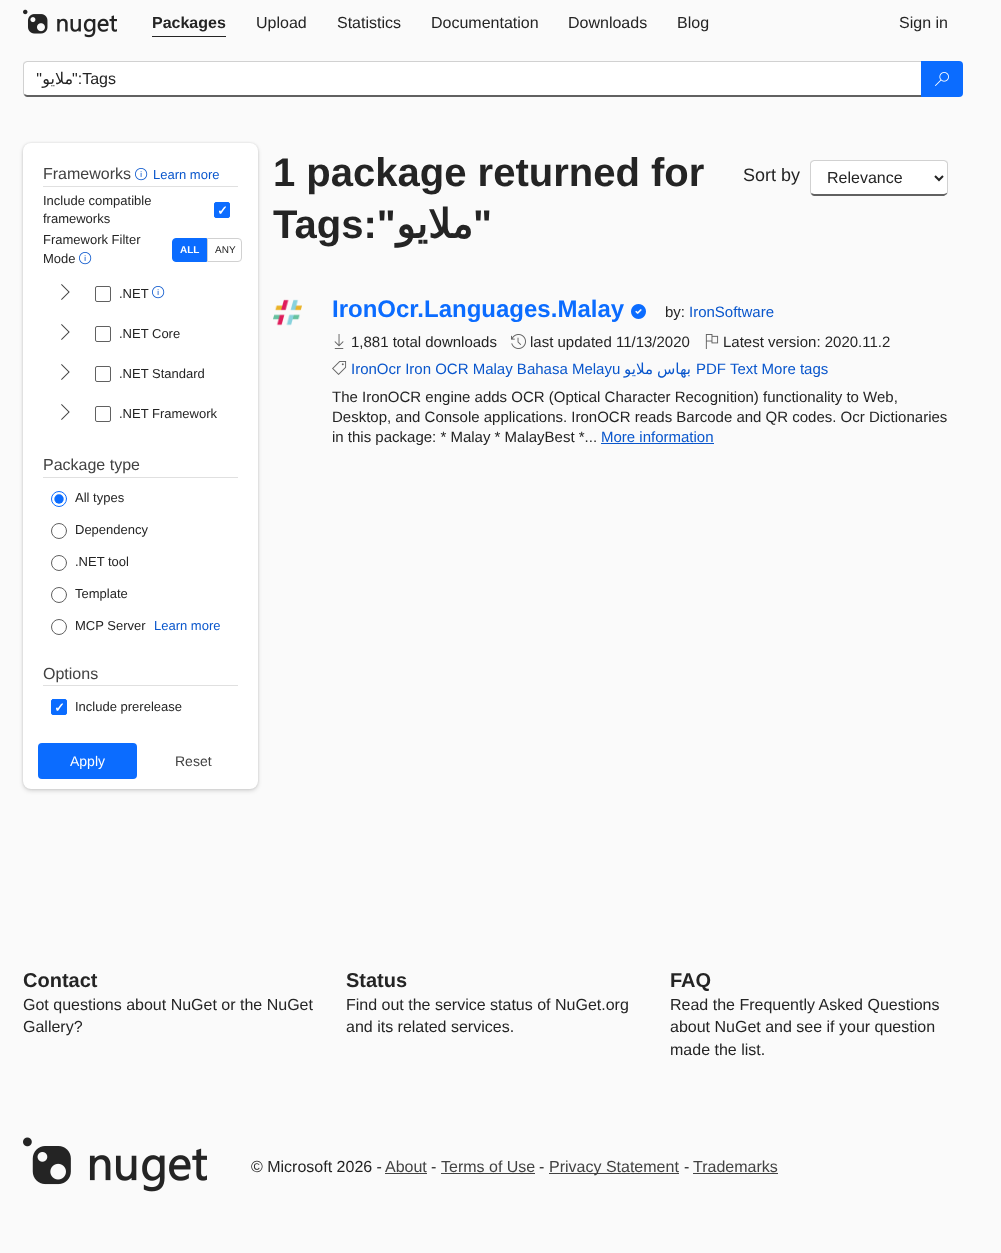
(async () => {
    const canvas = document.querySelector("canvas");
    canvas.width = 1001;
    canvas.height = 1253;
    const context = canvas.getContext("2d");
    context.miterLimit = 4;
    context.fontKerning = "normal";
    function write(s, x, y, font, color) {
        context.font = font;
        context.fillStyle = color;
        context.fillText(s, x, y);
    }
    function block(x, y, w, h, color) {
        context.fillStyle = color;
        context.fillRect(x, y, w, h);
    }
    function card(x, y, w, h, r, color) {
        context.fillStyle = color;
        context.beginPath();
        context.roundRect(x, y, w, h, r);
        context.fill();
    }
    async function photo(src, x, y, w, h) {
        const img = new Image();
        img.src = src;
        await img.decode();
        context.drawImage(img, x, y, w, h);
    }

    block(0, 0, 1001, 1253, "rgb(250, 250, 250)");
    await photo("media/1.png", 23, 9, 94, 29);
    write("Packages", 152, 28, "bold 16px Liberation Sans", "rgb(36, 36, 36)");
    block(152, 36, 74, 1, "rgb(36, 36, 36)");
    write("Upload", 256, 28, "16px Liberation Sans", "rgb(36, 36, 36)");
    write("Statistics", 337, 28, "16px Liberation Sans", "rgb(36, 36, 36)");
    write("Documentation", 431, 28, "16px Liberation Sans", "rgb(36, 36, 36)");
    write("Downloads", 568, 28, "16px Liberation Sans", "rgb(36, 36, 36)");
    write("Blog", 677, 28, "16px Liberation Sans", "rgb(36, 36, 36)");
    write("Sign in", 899, 28, "16px Liberation Sans", "rgb(36, 36, 36)");
    context.fillStyle = "rgb(255, 255, 255)";
    context.beginPath();
    context.moveTo(27, 62);
    context.lineTo(921, 62);
    context.lineTo(921, 95);
    context.lineTo(27, 95);
    context.bezierCurveTo(25, 95, 24, 94, 24, 93);
    context.lineTo(24, 65);
    context.bezierCurveTo(24, 63, 25, 62, 27, 62);
    context.closePath();
    context.fill();
    context.fillStyle = "rgb(209, 209, 209)";
    context.beginPath();
    context.moveTo(27, 61);
    context.lineTo(24, 62);
    context.lineTo(25, 63);
    context.lineTo(27, 62);
    context.lineTo(921, 62);
    context.lineTo(922, 61);
    context.closePath();
    context.fill();
    context.fillStyle = "rgb(97, 97, 97)";
    context.beginPath();
    context.moveTo(922, 97);
    context.lineTo(921, 95);
    context.lineTo(27, 95);
    context.lineTo(24, 94);
    context.lineTo(24, 95);
    context.bezierCurveTo(25, 96, 26, 97, 27, 97);
    context.closePath();
    context.fill();
    context.fillStyle = "rgb(209, 209, 209)";
    context.beginPath();
    context.moveTo(23, 65);
    context.lineTo(23, 93);
    context.bezierCurveTo(23, 94, 23.5, 94.5, 24, 95.5);
    context.lineTo(24.5, 94);
    context.lineTo(24, 93);
    context.lineTo(24, 64.5);
    context.lineTo(25, 63);
    context.lineTo(24, 62);
    context.bezierCurveTo(23.5, 63, 23, 64, 23, 65);
    context.closePath();
    context.fill();
    context.direction = "rtl";
    write("\"", 42, 84, "16px Liberation Sans", "rgb(36, 36, 36)");
    write("ملايو", 73, 84, "16px DejaVu Sans", "rgb(36, 36, 36)");
    write("Tags:\"", 116, 84, "16px Liberation Sans", "rgb(36, 36, 36)");
    context.fillStyle = "rgb(11, 108, 255)";
    context.beginPath();
    context.roundRect(921, 61, 42, 36, [0, 4, 4, 0]);
    context.fill();
    await photo("media/2.png", 935, 72, 14, 14);
    context.fillStyle = "rgba(0, 0, 0, 0.14)";
    context.filter = "blur(2px)";
    context.beginPath();
    context.roundRect(23, 145, 235, 646, 8);
    context.fill();
    context.filter = "none";
    context.fillStyle = "rgba(0, 0, 0, 0.12)";
    context.filter = "blur(1px)";
    context.beginPath();
    context.roundRect(23, 143, 235, 646, 8);
    context.fill();
    context.filter = "none";
    card(23, 143, 235, 646, 8, "rgb(255, 255, 255)");
    block(43, 186, 195, 1, "rgb(224, 224, 224)");
    context.direction = "ltr";
    write("Frameworks", 43, 179, "16px Liberation Sans", "rgb(66, 66, 66)");
    await photo("media/3.png", 135, 168, 13, 13);
    write("Learn more", 153, 179, "13px Liberation Sans", "rgb(9, 86, 204)");
    write("Include compatible", 43, 205, "13px Liberation Sans", "rgb(36, 36, 36)");
    write("frameworks", 43, 223, "13px Liberation Sans", "rgb(36, 36, 36)");
    context.fillStyle = "rgb(11, 108, 255)";
    context.beginPath();
    context.roundRect(214.5, 202.5, 15, 15, 1.5);
    context.fill();
    context.strokeStyle = "rgb(11, 108, 255)";
    context.stroke();
    write("✓", 217, 215, "bold 13px DejaVu Sans", "rgb(255, 255, 255)");
    write("Framework Filter", 43, 244, "13px Liberation Sans", "rgb(36, 36, 36)");
    write("Mode", 43, 263, "13px Liberation Sans", "rgb(36, 36, 36)");
    await photo("media/3.png", 79, 252, 13, 13);
    context.fillStyle = "rgb(11, 108, 255)";
    context.beginPath();
    context.roundRect(172.5, 238.5, 34, 23, [3.5, 0, 0, 3.5]);
    context.fill();
    context.stroke();
    write("ALL", 180, 253, "bold 10px Liberation Sans", "rgb(255, 255, 255)");
    context.beginPath();
    context.roundRect(207.5, 238.5, 34, 23, [0, 3.5, 3.5, 0]);
    context.strokeStyle = "rgb(209, 209, 209)";
    context.stroke();
    write("ANY", 215, 253, "10px Liberation Sans", "rgb(36, 36, 36)");
    await photo("media/4.png", 61, 284, 9, 16);
    context.beginPath();
    context.roundRect(95.5, 286.5, 15, 15, 1.5);
    context.strokeStyle = "rgb(97, 97, 97)";
    context.stroke();
    write(".NET", 119, 298, "13px Liberation Sans", "rgb(36, 36, 36)");
    await photo("media/3.png", 152, 286, 13, 13);
    await photo("media/4.png", 61, 324, 9, 16);
    context.beginPath();
    context.roundRect(95.5, 326.5, 15, 15, 1.5);
    context.stroke();
    write(".NET Core", 119, 338, "13px Liberation Sans", "rgb(36, 36, 36)");
    await photo("media/4.png", 61, 364, 9, 16);
    context.beginPath();
    context.roundRect(95.5, 366.5, 15, 15, 1.5);
    context.stroke();
    write(".NET Standard", 119, 378, "13px Liberation Sans", "rgb(36, 36, 36)");
    await photo("media/4.png", 61, 404, 9, 16);
    context.beginPath();
    context.roundRect(95.5, 406.5, 15, 15, 1.5);
    context.stroke();
    write(".NET Framework", 119, 418, "13px Liberation Sans", "rgb(36, 36, 36)");
    block(43, 477, 195, 1, "rgb(224, 224, 224)");
    write("Package type", 43, 470, "16px Liberation Sans", "rgb(66, 66, 66)");
    context.beginPath();
    context.moveTo(59, 499);
    context.lineTo(59.2, 499);
    context.strokeStyle = "rgb(11, 108, 255)";
    context.lineWidth = 9.4;
    context.lineCap = "round";
    context.setLineDash([0, 14]);
    context.stroke();
    context.beginPath();
    context.arc(59, 499, 7.5, 0, Math.PI * 2);
    context.lineWidth = 1;
    context.setLineDash([]);
    context.stroke();
    write("All types", 75, 502, "13px Liberation Sans", "rgb(36, 36, 36)");
    context.beginPath();
    context.arc(59, 531, 7.5, 0, Math.PI * 2);
    context.strokeStyle = "rgb(97, 97, 97)";
    context.stroke();
    write("Dependency", 75, 534, "13px Liberation Sans", "rgb(36, 36, 36)");
    context.beginPath();
    context.arc(59, 563, 7.5, 0, Math.PI * 2);
    context.stroke();
    write(".NET tool", 75, 566, "13px Liberation Sans", "rgb(36, 36, 36)");
    context.beginPath();
    context.arc(59, 595, 7.5, 0, Math.PI * 2);
    context.stroke();
    write("Template", 75, 598, "13px Liberation Sans", "rgb(36, 36, 36)");
    context.beginPath();
    context.arc(59, 627, 7.5, 0, Math.PI * 2);
    context.stroke();
    write("MCP Server", 75, 630, "13px Liberation Sans", "rgb(36, 36, 36)");
    write("Learn more", 154, 630, "13px Liberation Sans", "rgb(9, 86, 204)");
    block(43, 685, 195, 1, "rgb(224, 224, 224)");
    write("Options", 43, 679, "16px Liberation Sans", "rgb(66, 66, 66)");
    context.fillStyle = "rgb(11, 108, 255)";
    context.beginPath();
    context.roundRect(51.5, 699.5, 15, 15, 1.5);
    context.fill();
    context.strokeStyle = "rgb(11, 108, 255)";
    context.stroke();
    write("✓", 54, 712, "bold 13px DejaVu Sans", "rgb(255, 255, 255)");
    write("Include prerelease", 75, 711, "13px Liberation Sans", "rgb(36, 36, 36)");
    card(38, 743, 99, 36, 4, "rgb(11, 108, 255)");
    write("Apply", 70, 766, "14px Liberation Sans", "rgb(255, 255, 255)");
    write("Reset", 175, 766, "14px Liberation Sans", "rgb(66, 66, 66)");
    write("1 package returned for", 273, 186, "bold 40px Liberation Sans", "rgb(36, 36, 36)");
    write("Tags:\"", 273, 238, "bold 40px Liberation Sans", "rgb(36, 36, 36)");
    context.direction = "rtl";
    write("ملايو", 473, 238, "bold 40px DejaVu Sans", "rgb(36, 36, 36)");
    context.direction = "ltr";
    write("\"", 473, 238, "bold 40px Liberation Sans", "rgb(36, 36, 36)");
    write("Sort by", 743, 181, "18px Liberation Sans", "rgb(36, 36, 36)");
    context.fillStyle = "rgb(255, 255, 255)";
    context.beginPath();
    context.moveTo(814, 161);
    context.lineTo(944, 161);
    context.bezierCurveTo(946, 161, 947, 162, 947, 164);
    context.lineTo(947, 192);
    context.bezierCurveTo(947, 193, 946, 194, 944, 194);
    context.lineTo(814, 194);
    context.bezierCurveTo(812, 194, 811, 193, 811, 192);
    context.lineTo(811, 164);
    context.bezierCurveTo(811, 162, 812, 161, 814, 161);
    context.closePath();
    context.fill();
    context.fillStyle = "rgb(209, 209, 209)";
    context.beginPath();
    context.moveTo(814, 160);
    context.lineTo(811, 161);
    context.lineTo(812, 162);
    context.lineTo(814, 161);
    context.lineTo(944, 161);
    context.lineTo(946, 162);
    context.lineTo(947, 161);
    context.lineTo(944, 160);
    context.closePath();
    context.fill();
    context.beginPath();
    context.moveTo(948, 192);
    context.lineTo(948, 164);
    context.bezierCurveTo(948, 163, 947.5, 162, 947, 161);
    context.lineTo(946, 162);
    context.lineTo(947, 163.5);
    context.lineTo(947, 192);
    context.lineTo(946.5, 193);
    context.lineTo(947, 194.5);
    context.bezierCurveTo(947.5, 193.5, 948, 193, 948, 192);
    context.closePath();
    context.fill();
    context.fillStyle = "rgb(97, 97, 97)";
    context.beginPath();
    context.moveTo(814, 196);
    context.lineTo(944, 196);
    context.lineTo(947, 194);
    context.lineTo(947, 193);
    context.lineTo(944, 194);
    context.lineTo(814, 194);
    context.lineTo(811, 193);
    context.lineTo(811, 194);
    context.bezierCurveTo(812, 195, 813, 196, 814, 196);
    context.closePath();
    context.fill();
    context.fillStyle = "rgb(209, 209, 209)";
    context.beginPath();
    context.moveTo(810, 164);
    context.lineTo(810, 192);
    context.bezierCurveTo(810, 193, 810.5, 193.5, 811, 194.5);
    context.lineTo(811.5, 193);
    context.lineTo(811, 192);
    context.lineTo(811, 163.5);
    context.lineTo(812, 162);
    context.lineTo(811, 161);
    context.bezierCurveTo(810.5, 162, 810, 163, 810, 164);
    context.closePath();
    context.fill();
    context.beginPath();
    context.moveTo(935, 176);
    context.lineTo(939, 180);
    context.lineTo(943, 176);
    context.strokeStyle = "rgb(36, 36, 36)";
    context.lineWidth = 2;
    context.lineCap = "butt";
    context.stroke();
    write("Relevance", 827, 183, "16px Liberation Sans", "rgb(36, 36, 36)");
    await photo("media/5.png", 273, 299, 29, 27);
    write("IronOcr.Languages.Malay", 332, 317, "bold 24px Liberation Sans", "rgb(11, 108, 255)");
    await photo("media/6.png", 631, 304, 15, 15);
    write("by:", 665, 317, "15px Liberation Sans", "rgb(36, 36, 36)");
    write("IronSoftware", 689, 317, "15px Liberation Sans", "rgb(9, 86, 204)");
    await photo("media/7.png", 334, 334, 10, 15);
    write("1,881 total downloads", 351, 347, "15px Liberation Sans", "rgb(36, 36, 36)");
    await photo("media/8.png", 511, 334, 15, 15);
    write("last updated 11/13/2020", 530, 347, "15px Liberation Sans", "rgb(36, 36, 36)");
    await photo("media/9.png", 705, 334, 14, 15);
    write("Latest version: 2020.11.2", 723, 347, "15px Liberation Sans", "rgb(36, 36, 36)");
    await photo("media/10.png", 332, 361, 15, 14);
    write("IronOcr Iron OCR Malay Bahasa Melayu", 351, 374, "15px Liberation Sans", "rgb(9, 86, 204)");
    context.direction = "rtl";
    write("ملايو", 653, 374, "15px DejaVu Sans", "rgb(9, 86, 204)");
    write("بهاس", 691, 374, "15px DejaVu Sans", "rgb(9, 86, 204)");
    context.direction = "ltr";
    write("PDF Text More tags", 696, 374, "15px Liberation Sans", "rgb(9, 86, 204)");
    write("The IronOCR engine adds OCR (Optical Character Recognition) functionality to Web,", 332, 402, "15px Liberation Sans", "rgb(36, 36, 36)");
    write("Desktop, and Console applications. IronOCR reads Barcode and QR codes. Ocr Dictionaries", 332, 422, "15px Liberation Sans", "rgb(36, 36, 36)");
    write("in this package: * Malay * MalayBest *...", 332, 442, "15px Liberation Sans", "rgb(36, 36, 36)");
    write("More information", 601, 442, "15px Liberation Sans", "rgb(9, 86, 204)");
    block(601, 443, 113, 1, "rgb(9, 86, 204)");
    write("Contact", 23, 987, "bold 20px Liberation Sans", "rgb(36, 36, 36)");
    write("Got questions about NuGet or the NuGet", 23, 1010, "16px Liberation Sans", "rgb(36, 36, 36)");
    write("Gallery?", 23, 1032, "16px Liberation Sans", "rgb(36, 36, 36)");
    write("Status", 346, 987, "bold 20px Liberation Sans", "rgb(36, 36, 36)");
    write("Find out the service status of NuGet.org", 346, 1010, "16px Liberation Sans", "rgb(36, 36, 36)");
    write("and its related services.", 346, 1032, "16px Liberation Sans", "rgb(36, 36, 36)");
    write("FAQ", 670, 987, "bold 20px Liberation Sans", "rgb(36, 36, 36)");
    write("Read the Frequently Asked Questions", 670, 1010, "16px Liberation Sans", "rgb(36, 36, 36)");
    write("about NuGet and see if your question", 670, 1032, "16px Liberation Sans", "rgb(36, 36, 36)");
    write("made the list.", 670, 1055, "16px Liberation Sans", "rgb(36, 36, 36)");
    await photo("media/11.png", 23, 1137, 184, 55);
    write("© Microsoft 2026 -", 251, 1172, "16px Liberation Sans", "rgb(36, 36, 36)");
    write("About", 385, 1172, "16px Liberation Sans", "rgb(66, 66, 66)");
    block(385, 1173, 42, 1, "rgb(66, 66, 66)");
    write("-", 431, 1172, "16px Liberation Sans", "rgb(36, 36, 36)");
    write("Terms of Use", 441, 1172, "16px Liberation Sans", "rgb(66, 66, 66)");
    block(441, 1173, 94, 1, "rgb(66, 66, 66)");
    write("-", 539, 1172, "16px Liberation Sans", "rgb(36, 36, 36)");
    block(549, 1173, 130, 1, "rgb(66, 66, 66)");
    write("Privacy Statement", 549, 1172, "16px Liberation Sans", "rgb(66, 66, 66)");
    write("-", 684, 1172, "16px Liberation Sans", "rgb(36, 36, 36)");
    write("Trademarks", 693, 1172, "16px Liberation Sans", "rgb(66, 66, 66)");
    block(693, 1173, 85, 1, "rgb(66, 66, 66)");
})();
